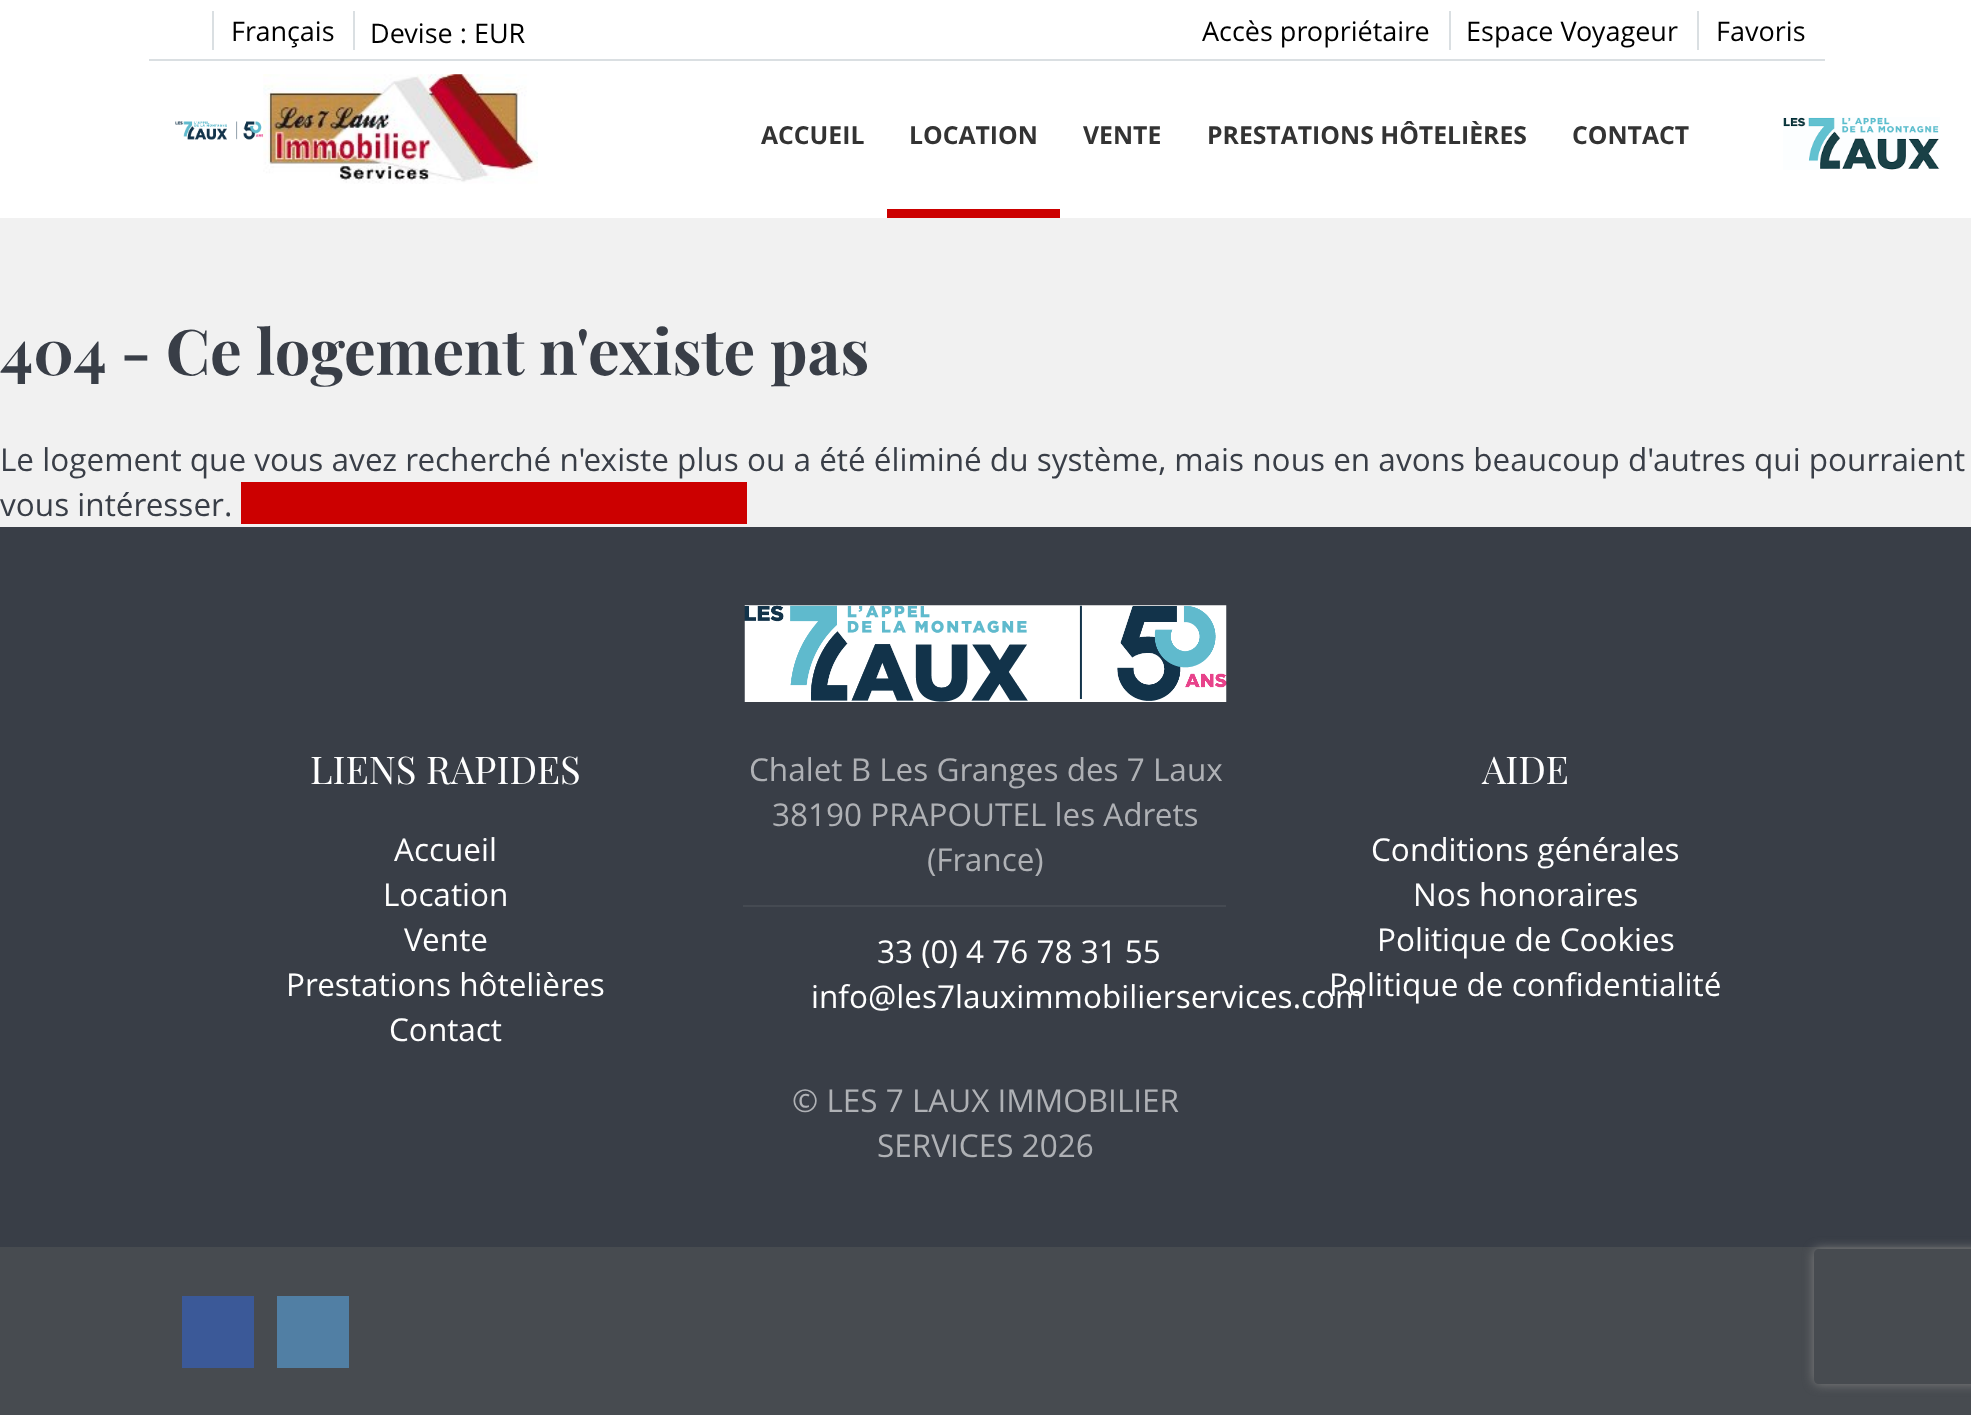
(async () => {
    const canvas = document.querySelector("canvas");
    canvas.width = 1971;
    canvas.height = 1415;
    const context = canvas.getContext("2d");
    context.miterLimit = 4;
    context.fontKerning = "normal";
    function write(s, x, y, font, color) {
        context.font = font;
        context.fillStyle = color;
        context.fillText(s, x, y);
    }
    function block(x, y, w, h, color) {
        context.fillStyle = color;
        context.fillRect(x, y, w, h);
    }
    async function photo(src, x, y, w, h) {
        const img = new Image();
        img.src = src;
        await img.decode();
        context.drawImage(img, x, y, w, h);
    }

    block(0, 0, 1971, 1415, "rgb(241, 241, 241)");
    block(0, 0, 1971, 218, "rgb(255, 255, 255)");
    block(149, 59, 1676, 2, "rgb(218, 223, 226)");
    block(212, 11, 2, 39, "rgb(218, 223, 226)");
    write("Français", 231, 41, "27px Open Sans", "rgb(0, 0, 0)");
    block(353, 11, 2, 39, "rgb(218, 223, 226)");
    write("Devise : EUR", 370, 43, "27px Open Sans", "rgb(0, 0, 0)");
    write("Accès propriétaire", 1202, 41, "27px Open Sans", "rgb(0, 0, 0)");
    block(1449, 11, 2, 39, "rgb(218, 223, 226)");
    write("Espace Voyageur", 1466, 41, "27px Open Sans", "rgb(0, 0, 0)");
    block(1697, 11, 2, 39, "rgb(218, 223, 226)");
    write("Favoris", 1716, 41, "27px Open Sans", "rgb(0, 0, 0)");
    await photo("media/1.png", 175, 121, 89, 19);
    await photo("media/2.png", 263, 74, 275, 110);
    write("ACCUEIL", 761, 144, "bold 24.75px Open Sans", "rgb(51, 51, 51)");
    block(887, 209, 173, 9, "rgb(204, 0, 0)");
    write("LOCATION", 909, 144, "bold 24.75px Open Sans", "rgb(51, 51, 51)");
    write("VENTE", 1083, 144, "bold 24.75px Open Sans", "rgb(51, 51, 51)");
    write("PRESTATIONS HÔTELIÈRES", 1207, 144, "bold 24.75px Open Sans", "rgb(51, 51, 51)");
    write("CONTACT", 1572, 144, "bold 24.75px Open Sans", "rgb(51, 51, 51)");
    await photo("media/3.png", 1783, 117, 157, 53);
    write("404 - Ce logement n'existe pas", 0, 375, "bold 63px Playfair Display", "rgb(57, 62, 71)");
    write("Le logement que vous avez recherché n'existe plus ou a été éliminé du système, mais nous en avons beaucoup d'autres qui pourraient", 0, 471, "31.5px Open Sans", "rgb(57, 62, 71)");
    write("vous intéresser.", 0, 516, "31.5px Open Sans", "rgb(57, 62, 71)");
    block(241, 482, 506, 42, "rgb(204, 0, 0)");
    block(0, 527, 1971, 720, "rgb(57, 62, 71)");
    write("LIENS RAPIDES", 310, 784, "38.25px Playfair Display", "rgb(255, 255, 255)");
    write("Accueil", 394, 861, "31.5px Open Sans", "rgb(255, 255, 255)");
    write("Location", 383, 906, "31.5px Open Sans", "rgb(255, 255, 255)");
    write("Vente", 404, 951, "31.5px Open Sans", "rgb(255, 255, 255)");
    write("Prestations hôtelières", 286, 996, "31.5px Open Sans", "rgb(255, 255, 255)");
    write("Contact", 389, 1041, "31.5px Open Sans", "rgb(255, 255, 255)");
    await photo("media/4.png", 744, 605, 483, 97);
    write("Chalet B Les Granges des 7 Laux", 749, 781, "31.5px Open Sans", "rgb(175, 177, 181)");
    write("38190 PRAPOUTEL les Adrets", 772, 826, "31.5px Open Sans", "rgb(175, 177, 181)");
    write("(France)", 927, 871, "31.5px Open Sans", "rgb(175, 177, 181)");
    block(743, 905, 483, 2, "rgb(69, 74, 82)");
    write("33 (0) 4 76 78 31 55", 877, 963, "31.5px Open Sans", "rgb(255, 255, 255)");
    write("info@les7lauximmobilierservices.com", 811, 1008, "31.5px Open Sans", "rgb(255, 255, 255)");
    write("© LES 7 LAUX IMMOBILIER", 792, 1112, "31.5px Open Sans", "rgb(175, 177, 181)");
    write("SERVICES 2026", 877, 1157, "31.5px Open Sans", "rgb(175, 177, 181)");
    write("AIDE", 1482, 784, "38.25px Playfair Display", "rgb(255, 255, 255)");
    write("Conditions générales", 1371, 861, "31.5px Open Sans", "rgb(255, 255, 255)");
    write("Nos honoraires", 1413, 906, "31.5px Open Sans", "rgb(255, 255, 255)");
    write("Politique de Cookies", 1377, 951, "31.5px Open Sans", "rgb(255, 255, 255)");
    write("Politique de confidentialité", 1329, 996, "31.5px Open Sans", "rgb(255, 255, 255)");
    block(0, 1247, 1971, 168, "rgb(71, 75, 80)");
    block(182, 1296, 72, 72, "rgb(59, 89, 152)");
    block(277, 1296, 72, 72, "rgb(81, 127, 164)");
    context.save();
    context.beginPath();
    context.moveTo(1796, 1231);
    context.lineTo(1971, 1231);
    context.lineTo(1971, 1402);
    context.lineTo(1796, 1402);
    context.closePath();
    context.moveTo(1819, 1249);
    context.lineTo(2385, 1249);
    context.bezierCurveTo(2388, 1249, 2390, 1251, 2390, 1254);
    context.lineTo(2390, 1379);
    context.bezierCurveTo(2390, 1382, 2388, 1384, 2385, 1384);
    context.lineTo(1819, 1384);
    context.bezierCurveTo(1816, 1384, 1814, 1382, 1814, 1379);
    context.lineTo(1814, 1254);
    context.bezierCurveTo(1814, 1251, 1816, 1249, 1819, 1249);
    context.closePath();
    context.clip("evenodd");
    context.fillStyle = "rgb(128, 128, 128)";
    context.filter = "blur(5.5px)";
    context.beginPath();
    context.roundRect(1814, 1249, 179, 135, 5);
    context.fill();
    context.filter = "none";
    context.restore();
})();
